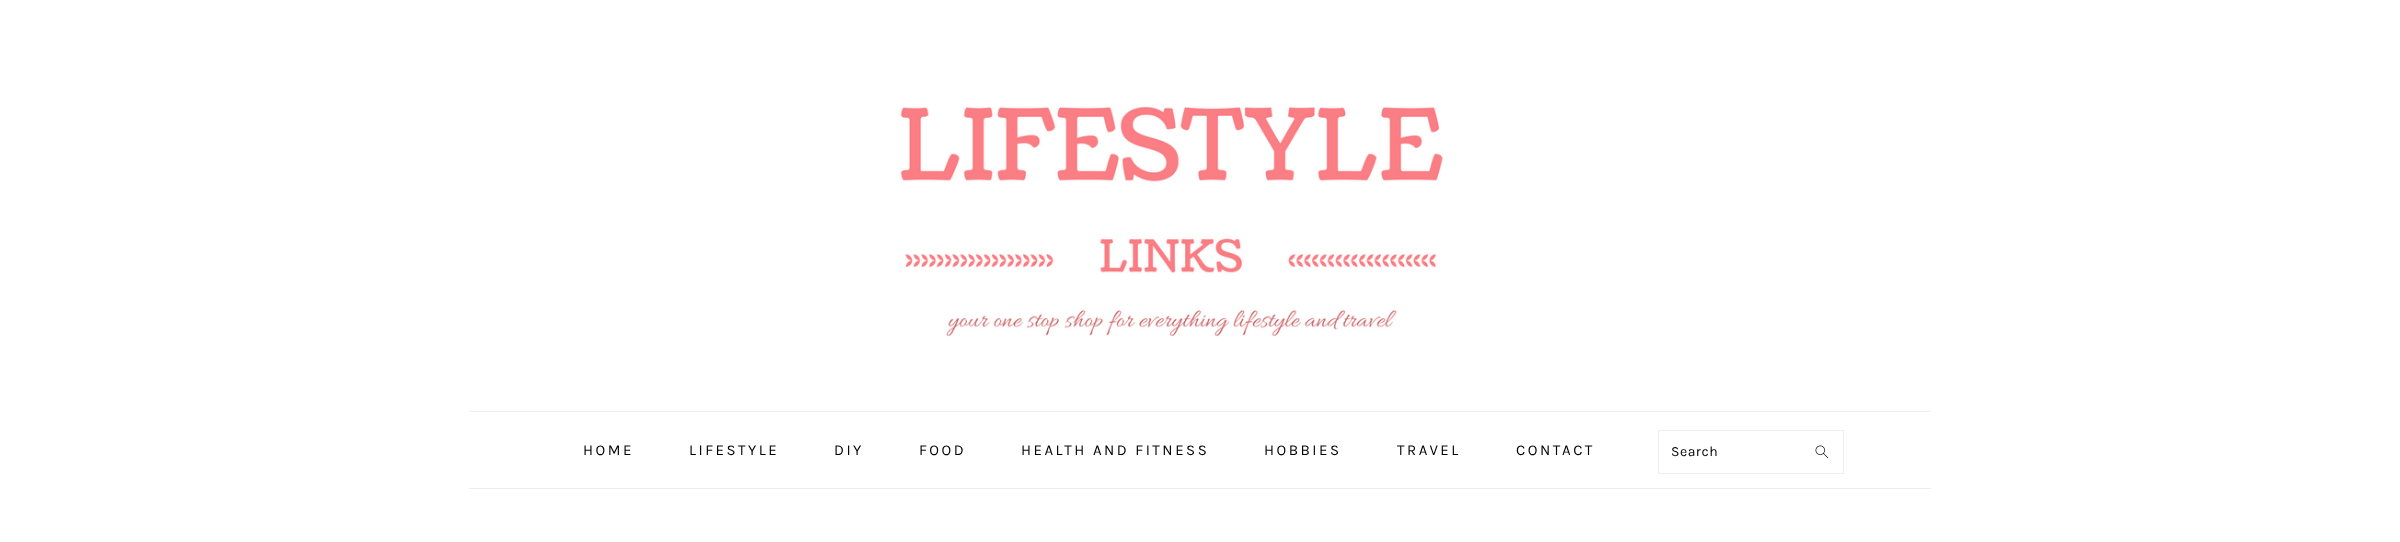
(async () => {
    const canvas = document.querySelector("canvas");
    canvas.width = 2400;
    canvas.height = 542;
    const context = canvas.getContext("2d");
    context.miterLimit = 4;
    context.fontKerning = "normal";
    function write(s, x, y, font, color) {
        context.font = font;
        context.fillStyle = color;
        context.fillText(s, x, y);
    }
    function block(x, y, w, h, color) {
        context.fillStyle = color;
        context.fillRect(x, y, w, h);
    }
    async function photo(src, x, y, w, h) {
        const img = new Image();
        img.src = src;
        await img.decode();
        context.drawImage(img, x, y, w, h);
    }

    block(0, 0, 2400, 542, "rgb(255, 255, 255)");
    await photo("media/1.png", 900, 106, 543, 231);
    block(469, 411, 1462, 1, "rgb(238, 238, 238)");
    block(469, 488, 1462, 1, "rgb(238, 238, 238)");
    context.letterSpacing = "2.5px";
    write("HOME", 583, 455, "15px Karla", "rgb(0, 0, 0)");
    write("LIFESTYLE", 689, 455, "15px Karla", "rgb(0, 0, 0)");
    write("DIY", 834, 455, "15px Karla", "rgb(0, 0, 0)");
    write("FOOD", 919, 455, "15px Karla", "rgb(0, 0, 0)");
    write("HEALTH AND FITNESS", 1021, 455, "15px Karla", "rgb(0, 0, 0)");
    write("HOBBIES", 1264, 455, "15px Karla", "rgb(0, 0, 0)");
    write("TRAVEL", 1397, 455, "15px Karla", "rgb(0, 0, 0)");
    write("CONTACT", 1516, 455, "15px Karla", "rgb(0, 0, 0)");
    context.strokeStyle = "rgb(238, 238, 238)";
    context.strokeRect(1658.5, 430.5, 185, 43);
    await photo("media/2.png", 1815, 445, 14, 14);
    context.letterSpacing = "0.5px";
    write("Search", 1671, 456, "14px Karla", "rgb(0, 0, 0)");
})();
